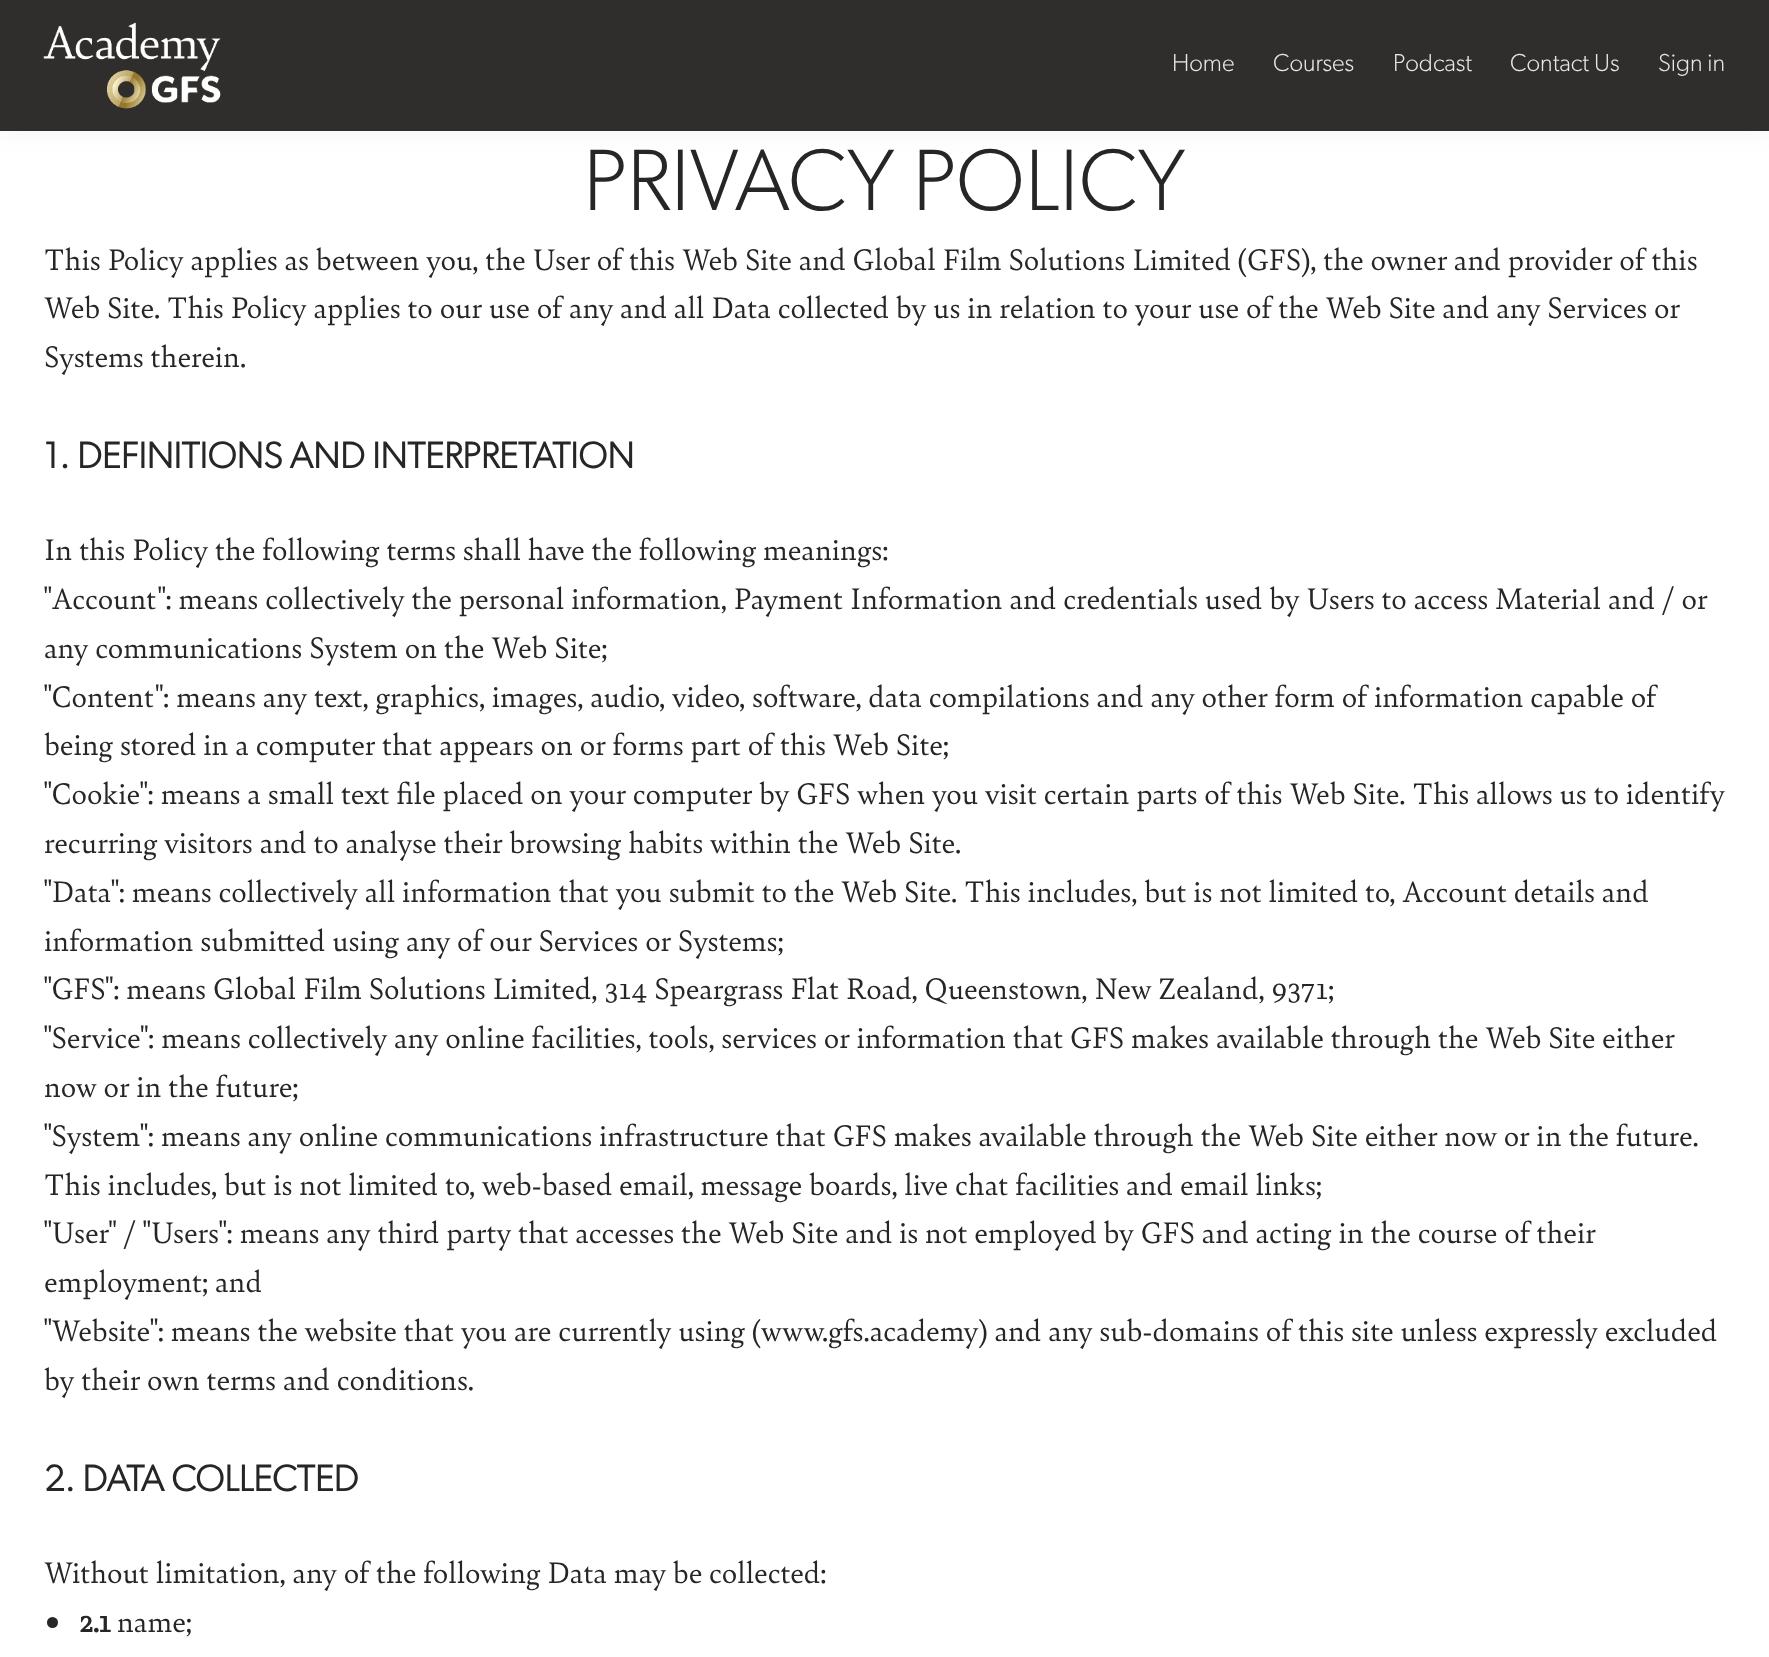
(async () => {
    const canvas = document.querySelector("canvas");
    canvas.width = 1769;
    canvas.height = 1657;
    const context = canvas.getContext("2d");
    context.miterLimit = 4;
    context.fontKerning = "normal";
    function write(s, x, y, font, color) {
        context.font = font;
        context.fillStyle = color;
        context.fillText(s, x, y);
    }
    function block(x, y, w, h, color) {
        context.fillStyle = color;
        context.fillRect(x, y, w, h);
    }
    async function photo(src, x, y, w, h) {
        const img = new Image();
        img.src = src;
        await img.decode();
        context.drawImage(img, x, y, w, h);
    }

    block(0, 0, 1769, 1657, "rgb(255, 255, 255)");
    context.fillStyle = "rgba(0, 0, 0, 0.05)";
    context.filter = "blur(13px)";
    context.beginPath();
    context.rect(0, 0, 1769, 131);
    context.fill();
    context.filter = "none";
    block(0, 0, 1769, 131, "rgb(48, 46, 44)");
    await photo("media/1.png", 43, 22, 178, 87);
    write("Home", 1172, 71, "300 24.5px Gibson", "rgb(231, 231, 231)");
    write("Courses", 1273, 71, "300 24.5px Gibson", "rgb(231, 231, 231)");
    write("Podcast", 1393, 71, "300 24.5px Gibson", "rgb(231, 231, 231)");
    write("Contact Us", 1510, 71, "300 24.5px Gibson", "rgb(231, 231, 231)");
    write("Sign in", 1658, 71, "300 24.5px Gibson", "rgb(231, 231, 231)");
    write("PRIVACY POLICY", 583, 210, "300 87.5px Gibson", "rgb(38, 38, 38)");
    write("This Policy applies as between you, the User of this Web Site and Global Film Solutions Limited (GFS), the owner and provider of this", 44, 270, "31.5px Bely", "rgb(38, 38, 38)");
    write("Web Site. This Policy applies to our use of any and all Data collected by us in relation to your use of the Web Site and any Services or", 44, 318, "31.5px Bely", "rgb(38, 38, 38)");
    write("Systems therein.", 44, 367, "31.5px Bely", "rgb(38, 38, 38)");
    write("1. DEFINITIONS AND INTERPRETATION", 44, 468, "bold 36.75px Gibson", "rgb(38, 38, 38)");
    write("In this Policy the following terms shall have the following meanings:", 44, 560, "31.5px Bely", "rgb(38, 38, 38)");
    write("\"Account\": means collectively the personal information, Payment Information and credentials used by Users to access Material and / or", 44, 609, "31.5px Bely", "rgb(38, 38, 38)");
    write("any communications System on the Web Site;", 44, 658, "31.5px Bely", "rgb(38, 38, 38)");
    write("\"Content\": means any text, graphics, images, audio, video, software, data compilations and any other form of information capable of", 44, 707, "31.5px Bely", "rgb(38, 38, 38)");
    write("being stored in a computer that appears on or forms part of this Web Site;", 44, 755, "31.5px Bely", "rgb(38, 38, 38)");
    write("\"Cookie\": means a small text file placed on your computer by GFS when you visit certain parts of this Web Site. This allows us to identify", 44, 804, "31.5px Bely", "rgb(38, 38, 38)");
    write("recurring visitors and to analyse their browsing habits within the Web Site.", 44, 853, "31.5px Bely", "rgb(38, 38, 38)");
    write("\"Data\": means collectively all information that you submit to the Web Site. This includes, but is not limited to, Account details and", 44, 902, "31.5px Bely", "rgb(38, 38, 38)");
    write("information submitted using any of our Services or Systems;", 44, 951, "31.5px Bely", "rgb(38, 38, 38)");
    write("\"GFS\": means Global Film Solutions Limited, 314 Speargrass Flat Road, Queenstown, New Zealand, 9371;", 44, 999, "31.5px Bely", "rgb(38, 38, 38)");
    write("\"Service\": means collectively any online facilities, tools, services or information that GFS makes available through the Web Site either", 44, 1048, "31.5px Bely", "rgb(38, 38, 38)");
    write("now or in the future;", 44, 1097, "31.5px Bely", "rgb(38, 38, 38)");
    write("\"System\": means any online communications infrastructure that GFS makes available through the Web Site either now or in the future.", 44, 1146, "31.5px Bely", "rgb(38, 38, 38)");
    write("This includes, but is not limited to, web-based email, message boards, live chat facilities and email links;", 44, 1195, "31.5px Bely", "rgb(38, 38, 38)");
    write("\"User\" / \"Users\": means any third party that accesses the Web Site and is not employed by GFS and acting in the course of their", 44, 1243, "31.5px Bely", "rgb(38, 38, 38)");
    write("employment; and", 44, 1292, "31.5px Bely", "rgb(38, 38, 38)");
    write("\"Website\": means the website that you are currently using (www.gfs.academy) and any sub-domains of this site unless expressly excluded", 44, 1341, "31.5px Bely", "rgb(38, 38, 38)");
    write("by their own terms and conditions.", 44, 1390, "31.5px Bely", "rgb(38, 38, 38)");
    write("2. DATA COLLECTED", 44, 1491, "bold 36.75px Gibson", "rgb(38, 38, 38)");
    write("Without limitation, any of the following Data may be collected:", 44, 1583, "31.5px Bely", "rgb(38, 38, 38)");
    context.beginPath();
    context.arc(52.5, 1622.5, 5.5, 0, Math.PI * 2);
    context.fill();
    write("2.1", 79, 1632, "bold 31.5px Bely", "rgb(38, 38, 38)");
    write("name;", 117, 1632, "31.5px Bely", "rgb(38, 38, 38)");
})();
